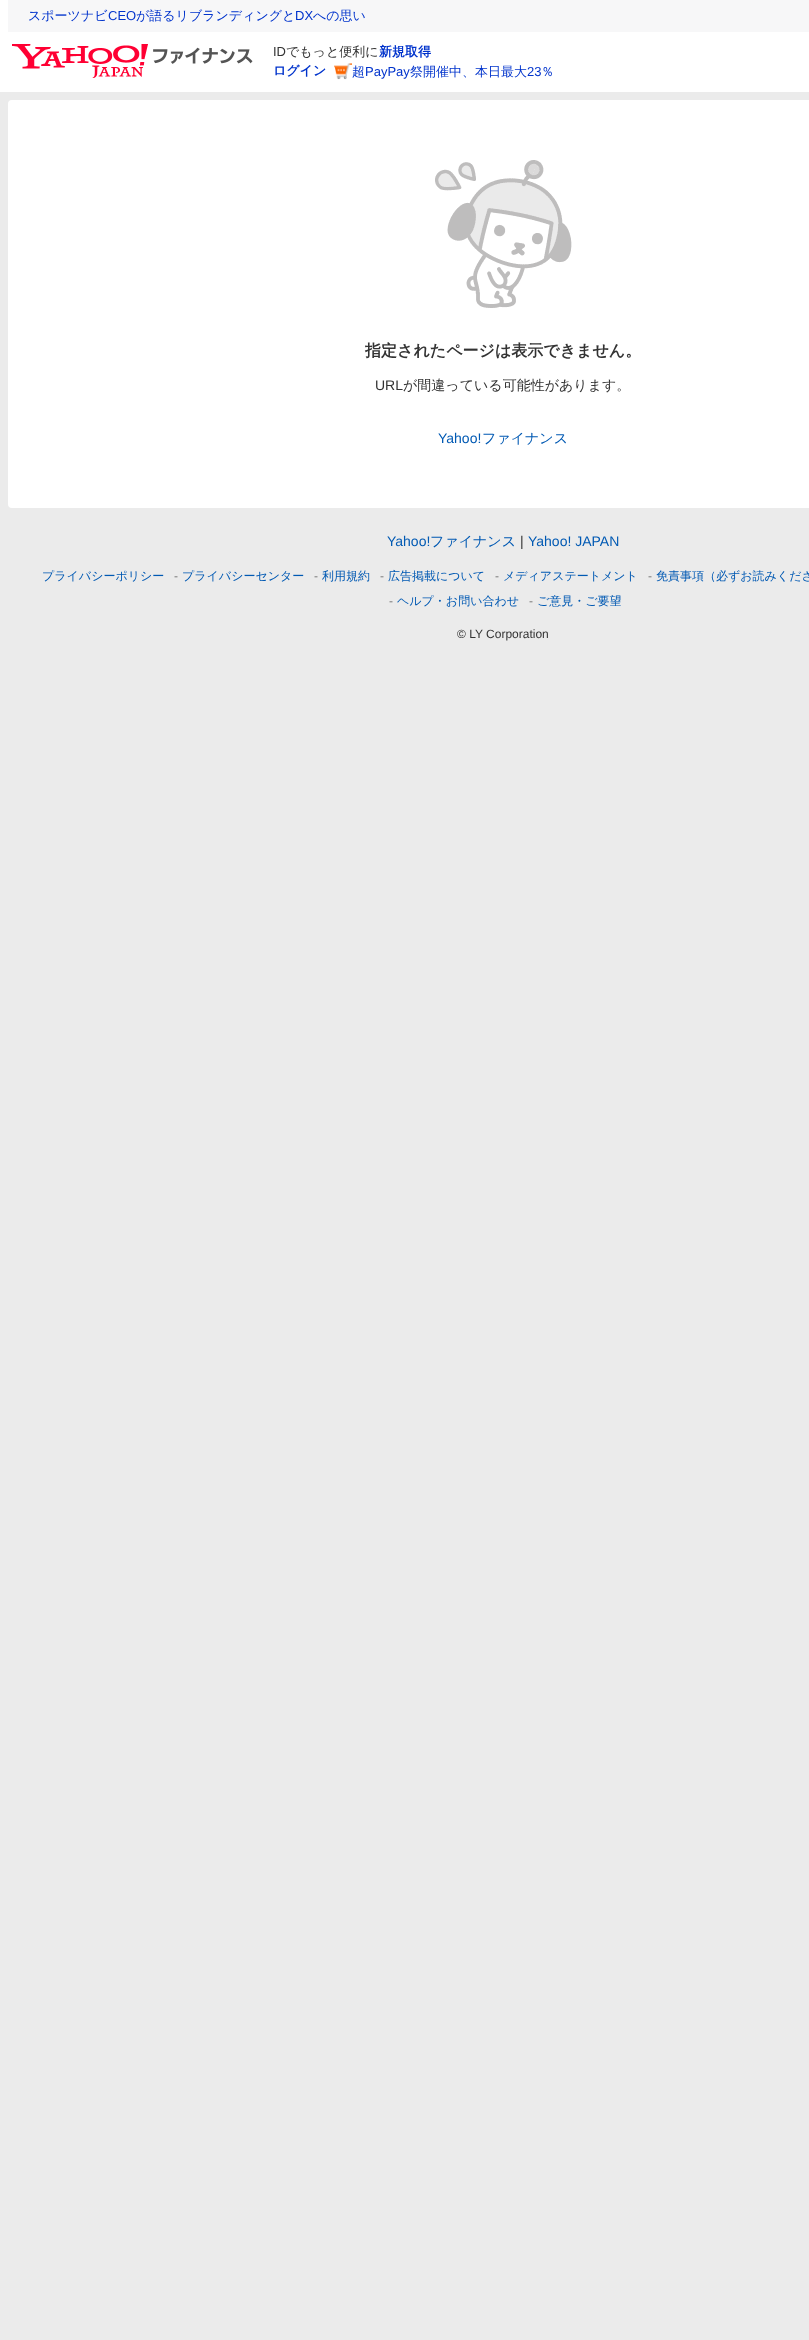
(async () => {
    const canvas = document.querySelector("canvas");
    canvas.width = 809;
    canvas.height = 2340;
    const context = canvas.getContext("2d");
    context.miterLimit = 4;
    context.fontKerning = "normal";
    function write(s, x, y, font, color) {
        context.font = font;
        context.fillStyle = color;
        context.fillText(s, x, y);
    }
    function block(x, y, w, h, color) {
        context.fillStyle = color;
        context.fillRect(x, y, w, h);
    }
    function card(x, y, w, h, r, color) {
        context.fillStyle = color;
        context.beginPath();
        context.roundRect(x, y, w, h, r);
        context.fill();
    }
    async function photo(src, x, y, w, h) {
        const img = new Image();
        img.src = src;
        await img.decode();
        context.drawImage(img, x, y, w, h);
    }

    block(0, 0, 809, 2340, "rgb(235, 235, 235)");
    block(0, 0, 809, 92, "rgb(255, 255, 255)");
    block(8, 0, 801, 32, "rgb(247, 247, 248)");
    write("スポーツナビ", 28, 20, "500 13px WenQuanYi Zen Hei", "rgb(0, 51, 204)");
    write("CEO", 108, 20, "13px Liberation Sans", "rgb(0, 51, 204)");
    write("が語るリブランディングと", 136, 20, "500 13px WenQuanYi Zen Hei", "rgb(0, 51, 204)");
    write("DX", 295, 20, "13px Liberation Sans", "rgb(0, 51, 204)");
    write("への思い", 313, 20, "500 13px WenQuanYi Zen Hei", "rgb(0, 51, 204)");
    await photo("media/1.png", 12, 44, 241, 34);
    write("ID", 273, 56, "13px Liberation Sans", "rgb(51, 51, 51)");
    write("でもっと便利に", 286, 56, "500 13px WenQuanYi Zen Hei", "rgb(51, 51, 51)");
    write("新規取得", 379, 56, "bold 13px WenQuanYi Zen Hei", "rgb(0, 51, 204)");
    write("ログイン", 273, 75, "bold 13px WenQuanYi Zen Hei", "rgb(0, 51, 204)");
    await photo("media/2.png", 334, 63, 18, 17);
    write("超", 352, 76, "500 13px WenQuanYi Zen Hei", "rgb(0, 51, 204)");
    write("PayPay", 365, 76, "13px Liberation Sans", "rgb(0, 51, 204)");
    write("祭開催中、本日最大", 410, 76, "500 13px WenQuanYi Zen Hei", "rgb(0, 51, 204)");
    write("23", 527, 76, "13px Liberation Sans", "rgb(0, 51, 204)");
    write("％", 541, 76, "500 13px WenQuanYi Zen Hei", "rgb(0, 51, 204)");
    card(8, 100, 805, 408, 4, "rgb(255, 255, 255)");
    await photo("media/3.png", 435, 160, 137, 148);
    write("指定されたページは表示できません。", 365, 356, "bold 16px WenQuanYi Zen Hei", "rgb(51, 51, 51)");
    write("URL", 375, 390, "14px Liberation Sans", "rgb(51, 51, 51)");
    write("が間違っている可能性があります。", 403, 390, "500 14px WenQuanYi Zen Hei", "rgb(51, 51, 51)");
    write("Yahoo!", 438, 443, "14px Liberation Sans", "rgb(0, 89, 179)");
    write("ファイナンス", 482, 443, "500 14px WenQuanYi Zen Hei", "rgb(0, 89, 179)");
    write("Yahoo!", 387, 546, "14px Liberation Sans", "rgb(0, 89, 179)");
    write("ファイナンス", 430, 546, "500 14px WenQuanYi Zen Hei", "rgb(0, 89, 179)");
    write("|", 520, 546, "14px Liberation Sans", "rgb(51, 51, 51)");
    write("Yahoo! JAPAN", 528, 546, "14px Liberation Sans", "rgb(0, 89, 179)");
    write("プライバシーポリシー", 42, 580, "500 12px WenQuanYi Zen Hei", "rgb(0, 89, 179)");
    write("-", 174, 580, "12px Liberation Sans", "rgb(117, 117, 117)");
    write("プライバシーセンター", 182, 580, "500 12px WenQuanYi Zen Hei", "rgb(0, 89, 179)");
    write("-", 314, 580, "12px Liberation Sans", "rgb(117, 117, 117)");
    write("利用規約", 322, 580, "500 12px WenQuanYi Zen Hei", "rgb(0, 89, 179)");
    write("-", 380, 580, "12px Liberation Sans", "rgb(117, 117, 117)");
    write("広告掲載について", 388, 580, "500 12px WenQuanYi Zen Hei", "rgb(0, 89, 179)");
    write("-", 495, 580, "12px Liberation Sans", "rgb(117, 117, 117)");
    write("メディアステートメント", 503, 580, "500 12px WenQuanYi Zen Hei", "rgb(0, 89, 179)");
    write("-", 648, 580, "12px Liberation Sans", "rgb(117, 117, 117)");
    write("免責事項（必ずお読みくださ", 656, 580, "500 12px WenQuanYi Zen Hei", "rgb(0, 89, 179)");
    write("-", 389, 605, "12px Liberation Sans", "rgb(117, 117, 117)");
    write("ヘルプ・お問い合わせ", 397, 605, "500 12px WenQuanYi Zen Hei", "rgb(0, 89, 179)");
    write("-", 529, 605, "12px Liberation Sans", "rgb(117, 117, 117)");
    write("ご意見・ご要望", 537, 605, "500 12px WenQuanYi Zen Hei", "rgb(0, 89, 179)");
    write("© LY Corporation", 457, 638, "12px Liberation Sans", "rgb(51, 51, 51)");
})();
